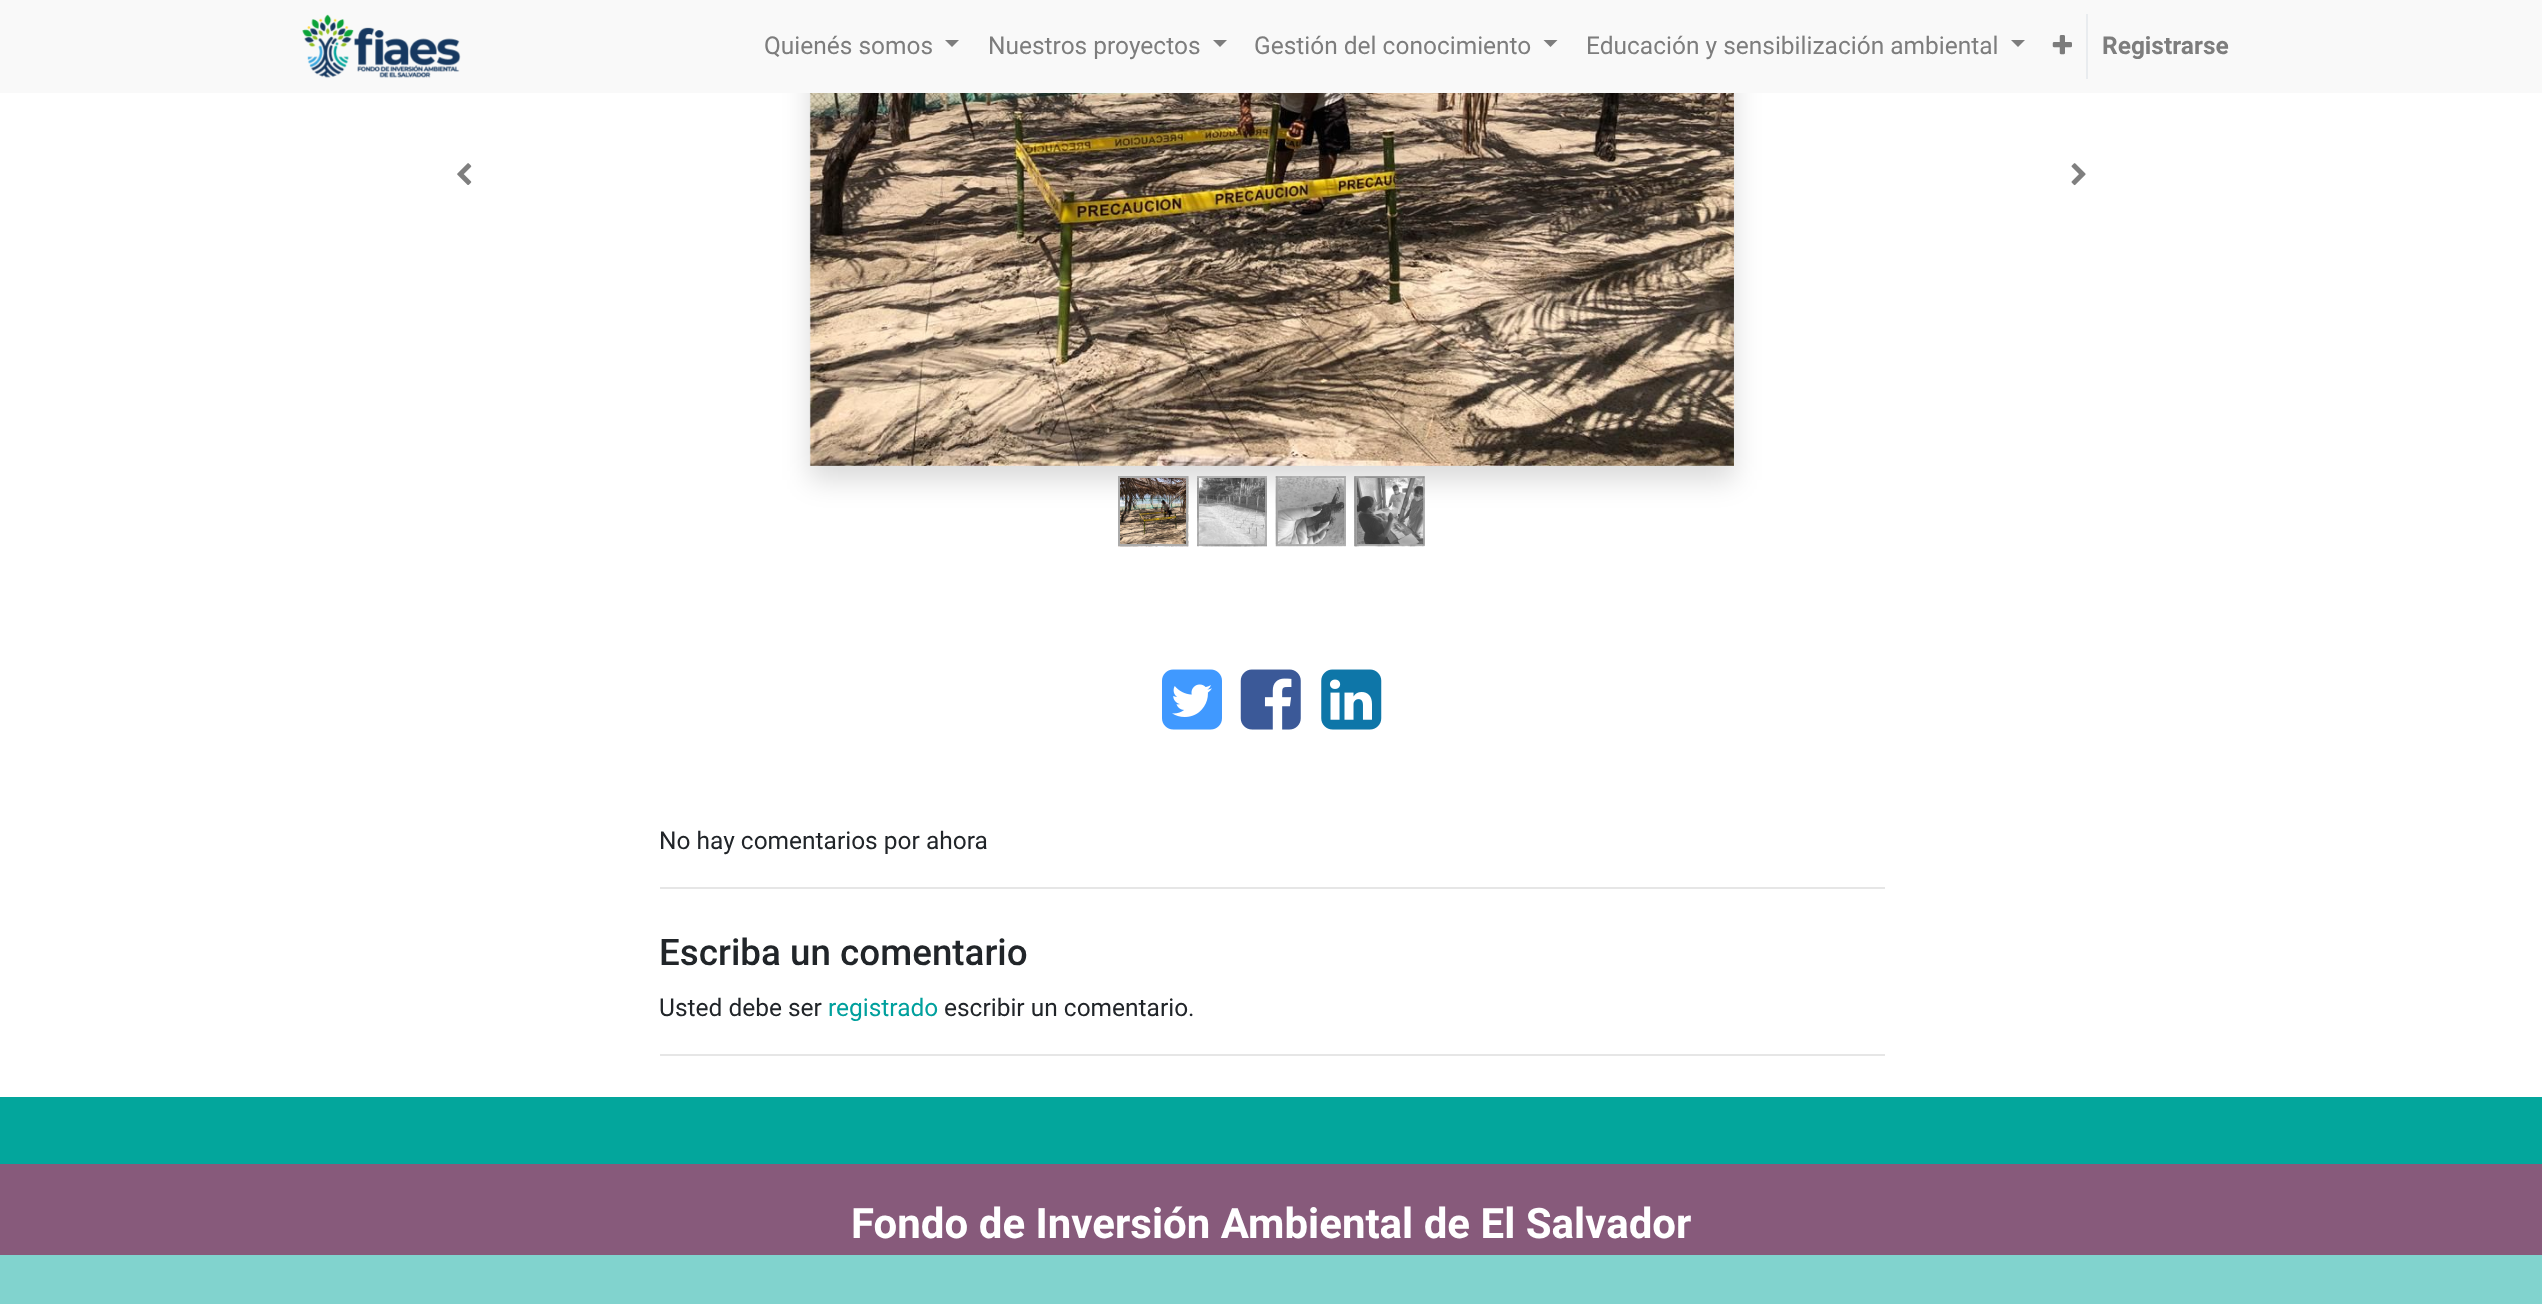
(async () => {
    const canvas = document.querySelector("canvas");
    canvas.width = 2542;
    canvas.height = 1304;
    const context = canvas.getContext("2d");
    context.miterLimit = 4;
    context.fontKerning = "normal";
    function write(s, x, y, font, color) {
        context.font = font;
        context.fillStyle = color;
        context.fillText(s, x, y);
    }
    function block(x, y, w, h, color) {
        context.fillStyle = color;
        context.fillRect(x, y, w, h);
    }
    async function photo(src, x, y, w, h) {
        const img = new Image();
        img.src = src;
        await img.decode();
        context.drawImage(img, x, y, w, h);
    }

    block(0, 0, 2542, 1304, "rgb(255, 255, 255)");
    context.fillStyle = "rgba(0, 0, 0, 0.15)";
    context.filter = "blur(14px)";
    context.beginPath();
    context.rect(810, -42, 924, 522);
    context.fill();
    context.filter = "none";
    block(0, 0, 2542, 93, "rgb(249, 249, 249)");
    await photo("media/1.png", 302, 14, 159, 64);
    write("Quienés somos", 764, 54, "24.5px Roboto", "rgb(125, 125, 125)");
    context.beginPath();
    context.moveTo(945, 40);
    context.lineTo(959, 40);
    context.lineTo(952, 47);
    context.closePath();
    context.fill();
    write("Nuestros proyectos", 988, 54, "24.5px Roboto", "rgb(125, 125, 125)");
    context.beginPath();
    context.moveTo(1213, 40);
    context.lineTo(1227, 40);
    context.lineTo(1220, 47);
    context.closePath();
    context.fill();
    write("Gestión del conocimiento", 1254, 54, "24.5px Roboto", "rgb(125, 125, 125)");
    context.beginPath();
    context.moveTo(1543.5, 40);
    context.lineTo(1557.5, 40);
    context.lineTo(1550.5, 47);
    context.closePath();
    context.fill();
    write("Educación y sensibilización ambiental", 1586, 54, "24.5px Roboto", "rgb(125, 125, 125)");
    context.beginPath();
    context.moveTo(2011, 40);
    context.lineTo(2025, 40);
    context.lineTo(2018, 47);
    context.closePath();
    context.fill();
    await photo("media/2.png", 2052, 35, 20, 20);
    block(2086, 14, 2, 65, "rgb(233, 236, 239)");
    write("Registrarse", 2102, 54, "bold 24.5px Roboto", "rgb(125, 125, 125)");
    await photo("media/3.png", 457, 163, 15, 22);
    await photo("media/4.png", 809, 93, 925, 373);
    await photo("media/5.png", 2071, 163, 15, 23);
    await photo("media/6.png", 1118, 476, 71, 71);
    context.strokeStyle = "rgb(170, 170, 170)";
    context.lineWidth = 2;
    context.strokeRect(1119, 477, 68, 68);
    block(1197, 476, 70, 23, "rgba(255, 255, 255, 0.8)");
    await photo("media/7.png", 1197, 476, 70, 71);
    context.strokeStyle = "rgba(170, 170, 170, 0.8)";
    context.strokeRect(1198, 477, 68, 68);
    block(1276, 476, 70, 23, "rgba(255, 255, 255, 0.8)");
    await photo("media/8.png", 1275, 476, 71, 71);
    context.strokeRect(1277, 477, 68, 68);
    block(1355, 476, 70, 23, "rgba(255, 255, 255, 0.8)");
    await photo("media/9.png", 1354, 476, 71, 71);
    context.strokeRect(1356, 477, 68, 68);
    await photo("media/10.png", 1162, 669, 60, 61);
    await photo("media/11.png", 1240, 669, 61, 61);
    await photo("media/12.png", 1321, 669, 61, 61);
    write("No hay comentarios por ahora", 659, 849, "24.5px Roboto", "rgb(33, 37, 41)");
    block(660, 887, 1225, 2, "rgb(230, 230, 230)");
    write("Escriba un comentario", 659, 965, "500 36.75px Roboto", "rgb(33, 37, 41)");
    write("Usted debe ser", 659, 1016, "24.5px Roboto", "rgb(33, 37, 41)");
    write("registrado", 828, 1016, "24.5px Roboto", "rgb(0, 160, 157)");
    write("escribir un comentario.", 944, 1016, "24.5px Roboto", "rgb(33, 37, 41)");
    block(660, 1054, 1225, 2, "rgb(230, 230, 230)");
    block(0, 1097, 2542, 67, "rgb(3, 166, 156)");
    block(0, 1255, 2542, 49, "rgb(129, 211, 206)");
    block(0, 1164, 2542, 91, "rgb(135, 90, 123)");
    write("Fondo de Inversión Ambiental de El Salvador", 851, 1238, "bold 42px Roboto", "rgb(255, 255, 255)");
})();
